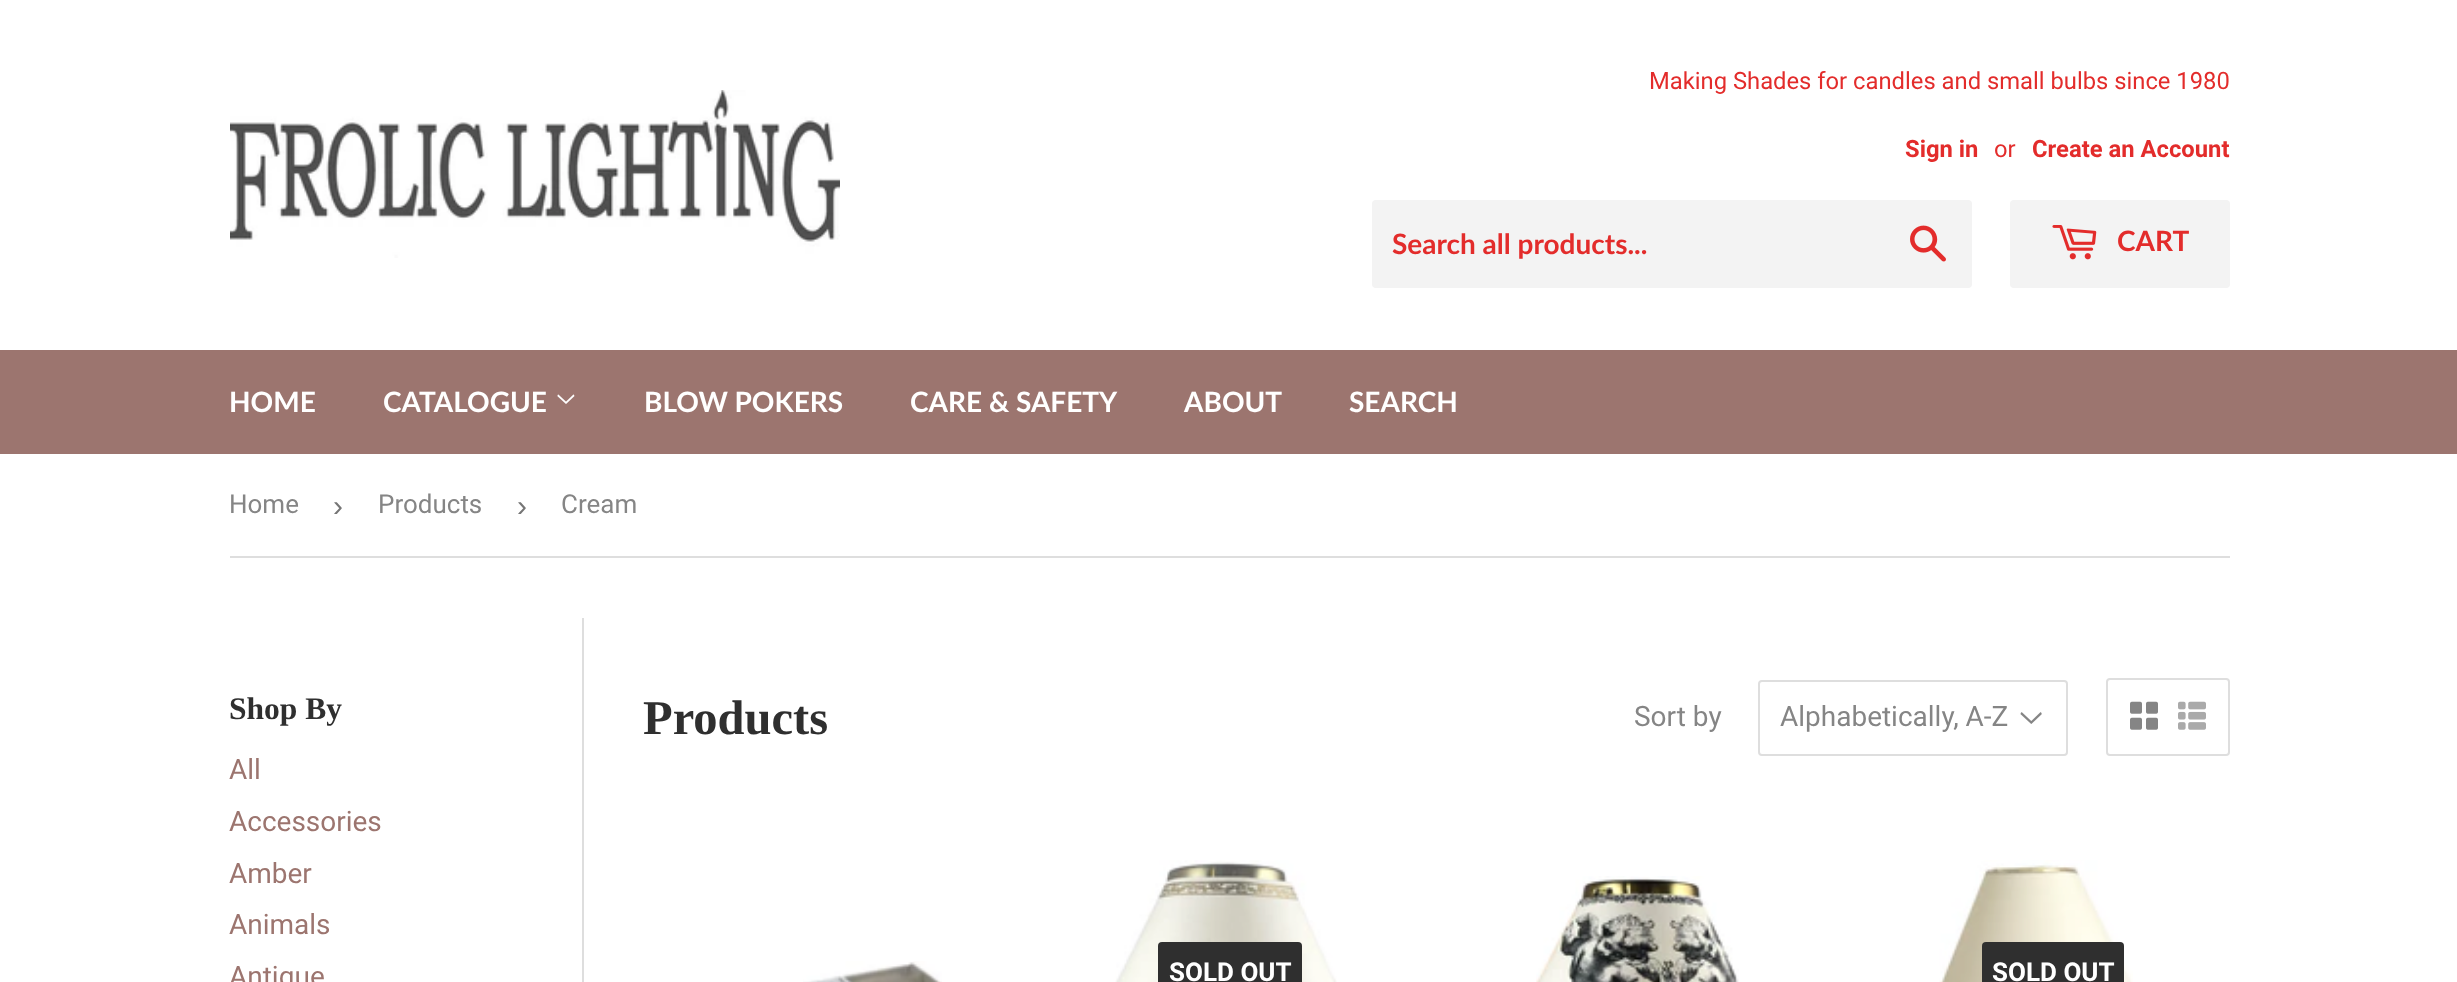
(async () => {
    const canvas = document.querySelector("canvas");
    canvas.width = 2457;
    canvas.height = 982;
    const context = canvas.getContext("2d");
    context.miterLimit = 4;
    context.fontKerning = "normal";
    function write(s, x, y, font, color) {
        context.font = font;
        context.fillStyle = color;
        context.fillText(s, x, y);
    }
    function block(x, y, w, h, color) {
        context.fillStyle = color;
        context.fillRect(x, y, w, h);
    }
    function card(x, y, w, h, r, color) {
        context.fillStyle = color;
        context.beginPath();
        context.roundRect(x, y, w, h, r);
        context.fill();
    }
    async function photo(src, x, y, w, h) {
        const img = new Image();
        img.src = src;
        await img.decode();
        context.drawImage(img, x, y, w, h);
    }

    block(0, 0, 2457, 982, "rgb(255, 255, 255)");
    await photo("media/1.png", 230, 90, 610, 168);
    write("Making Shades for candles and small bulbs since 1980", 1649, 89, "23.8px Roboto", "rgb(227, 44, 43)");
    write("Sign in", 1905, 157, "bold 23.8px Roboto", "rgb(227, 44, 43)");
    write("or", 1994, 157, "23.8px Roboto", "rgb(227, 44, 43)");
    write("Create an Account", 2032, 157, "bold 23.8px Roboto", "rgb(227, 44, 43)");
    card(1372, 200, 600, 88, 4, "rgb(243, 243, 243)");
    write("Search all products...", 1392, 254, "bold 28px Lato", "rgb(227, 44, 43)");
    await photo("media/2.png", 1910, 225, 36, 37);
    card(2010, 200, 220, 88, 4, "rgb(243, 243, 243)");
    await photo("media/3.png", 2052, 225, 45, 35);
    write("CART", 2117, 251, "bold 28px Lato", "rgb(227, 44, 43)");
    block(0, 350, 2457, 104, "rgb(156, 117, 111)");
    write("HOME", 229, 412, "bold 28px Lato", "rgb(255, 255, 255)");
    write("CATALOGUE", 383, 412, "bold 28px Lato", "rgb(255, 255, 255)");
    await photo("media/4.png", 557, 394, 18, 10);
    write("BLOW POKERS", 644, 412, "bold 28px Lato", "rgb(255, 255, 255)");
    write("CARE & SAFETY", 910, 412, "bold 28px Lato", "rgb(255, 255, 255)");
    write("ABOUT", 1184, 412, "bold 28px Lato", "rgb(255, 255, 255)");
    write("SEARCH", 1349, 412, "bold 28px Lato", "rgb(255, 255, 255)");
    block(230, 556, 2000, 2, "rgb(222, 222, 222)");
    write("Home", 229, 513, "26px Roboto", "rgb(133, 133, 133)");
    write("›", 333, 516, "30px Liberation Sans", "rgb(118, 118, 118)");
    write("Products", 378, 513, "26px Roboto", "rgb(133, 133, 133)");
    write("›", 517, 516, "30px Liberation Sans", "rgb(118, 118, 118)");
    write("Cream", 561, 513, "26px Roboto", "rgb(133, 133, 133)");
    write("Shop By", 229, 719, "bold 31.5px Liberation Serif", "rgb(47, 47, 47)");
    write("All", 229, 779, "28px Roboto", "rgb(156, 117, 111)");
    write("Accessories", 229, 831, "28px Roboto", "rgb(156, 117, 111)");
    write("Amber", 229, 883, "28px Roboto", "rgb(156, 117, 111)");
    write("Animals", 229, 934, "28px Roboto", "rgb(156, 117, 111)");
    write("Antique", 229, 986, "28px Roboto", "rgb(156, 117, 111)");
    block(582, 618, 2, 364, "rgb(222, 222, 222)");
    write("Products", 643, 734, "bold 48.5px Liberation Serif", "rgb(47, 47, 47)");
    write("Sort by", 1634, 726, "28px Roboto", "rgb(133, 133, 133)");
    await photo("media/5.png", 2020, 712, 22, 12);
    context.beginPath();
    context.roundRect(1759, 681, 308, 74, 3);
    context.strokeStyle = "rgb(222, 222, 222)";
    context.lineWidth = 2;
    context.stroke();
    write("Alphabetically, A-Z", 1780, 726, "28px Roboto", "rgb(133, 133, 133)");
    context.beginPath();
    context.roundRect(2107, 679, 122, 76, 3);
    context.stroke();
    await photo("media/6.png", 2130, 701, 28, 29);
    await photo("media/7.png", 2178, 701, 28, 29);
    await photo("media/8.png", 803, 961, 139, 21);
    await photo("media/9.png", 1115, 860, 222, 122);
    card(1158, 942, 144, 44, 4, "rgb(47, 47, 47)");
    write("SOLD OUT", 1169, 981, "bold 26px Roboto", "rgb(255, 255, 255)");
    await photo("media/10.png", 1536, 876, 203, 106);
    await photo("media/11.png", 1939, 860, 194, 122);
    card(1982, 942, 142, 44, 4, "rgb(47, 47, 47)");
    write("SOLD OUT", 1992, 981, "bold 26px Roboto", "rgb(255, 255, 255)");
})();
